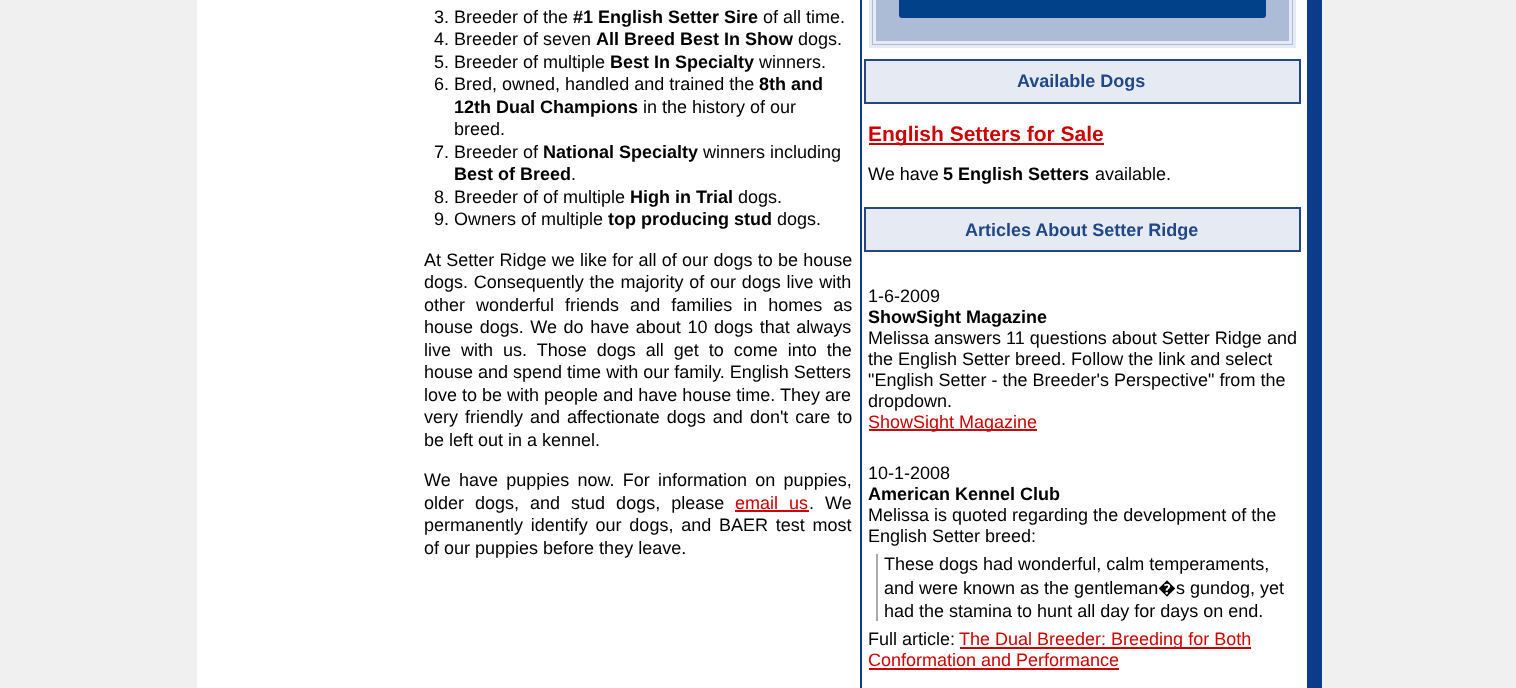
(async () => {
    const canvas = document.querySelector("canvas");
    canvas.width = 1516;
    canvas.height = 688;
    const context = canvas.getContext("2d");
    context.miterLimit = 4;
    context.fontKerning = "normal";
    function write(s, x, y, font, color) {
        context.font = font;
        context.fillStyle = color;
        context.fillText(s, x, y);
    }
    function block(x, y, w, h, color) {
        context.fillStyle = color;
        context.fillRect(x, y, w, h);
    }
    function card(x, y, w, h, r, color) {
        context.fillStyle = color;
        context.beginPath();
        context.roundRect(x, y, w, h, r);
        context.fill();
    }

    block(0, 0, 1516, 688, "rgb(240, 240, 240)");
    block(197, 0, 1110, 688, "rgb(255, 255, 255)");
    write("3. Breeder of the", 434, 23, "18px Liberation Sans", "rgb(0, 0, 0)");
    write("#1 English Setter Sire", 573, 23, "bold 18px Liberation Sans", "rgb(0, 0, 0)");
    write("of all time.", 763, 23, "18px Liberation Sans", "rgb(0, 0, 0)");
    write("4. Breeder of seven", 434, 45, "18px Liberation Sans", "rgb(0, 0, 0)");
    write("All Breed Best In Show", 596, 45, "bold 18px Liberation Sans", "rgb(0, 0, 0)");
    write("dogs.", 798, 45, "18px Liberation Sans", "rgb(0, 0, 0)");
    write("5. Breeder of multiple", 434, 68, "18px Liberation Sans", "rgb(0, 0, 0)");
    write("Best In Specialty", 610, 68, "bold 18px Liberation Sans", "rgb(0, 0, 0)");
    write("winners.", 759, 68, "18px Liberation Sans", "rgb(0, 0, 0)");
    write("6. Bred, owned, handled and trained the", 434, 90, "18px Liberation Sans", "rgb(0, 0, 0)");
    write("8th and", 759, 90, "bold 18px Liberation Sans", "rgb(0, 0, 0)");
    write("12th Dual Champions", 454, 113, "bold 18px Liberation Sans", "rgb(0, 0, 0)");
    write("in the history of our", 643, 113, "18px Liberation Sans", "rgb(0, 0, 0)");
    write("breed.", 454, 135, "18px Liberation Sans", "rgb(0, 0, 0)");
    write("7. Breeder of", 434, 158, "18px Liberation Sans", "rgb(0, 0, 0)");
    write("National Specialty", 543, 158, "bold 18px Liberation Sans", "rgb(0, 0, 0)");
    write("winners including", 703, 158, "18px Liberation Sans", "rgb(0, 0, 0)");
    write("Best of Breed", 454, 180, "bold 18px Liberation Sans", "rgb(0, 0, 0)");
    write(".", 571, 180, "18px Liberation Sans", "rgb(0, 0, 0)");
    write("8. Breeder of of multiple", 434, 203, "18px Liberation Sans", "rgb(0, 0, 0)");
    write("High in Trial", 630, 203, "bold 18px Liberation Sans", "rgb(0, 0, 0)");
    write("dogs.", 738, 203, "18px Liberation Sans", "rgb(0, 0, 0)");
    write("9. Owners of multiple", 434, 225, "18px Liberation Sans", "rgb(0, 0, 0)");
    write("top producing stud", 608, 225, "bold 18px Liberation Sans", "rgb(0, 0, 0)");
    write("dogs.", 777, 225, "18px Liberation Sans", "rgb(0, 0, 0)");
    context.wordSpacing = "0.25px";
    write("At Setter Ridge we like for all of our dogs to be house", 424, 266, "18px Liberation Sans", "rgb(0, 0, 0)");
    context.wordSpacing = "0.75px";
    write("dogs. Consequently the majority of our dogs live with", 424, 288, "18px Liberation Sans", "rgb(0, 0, 0)");
    context.wordSpacing = "6px";
    write("other wonderful friends and families in homes as", 424, 311, "18px Liberation Sans", "rgb(0, 0, 0)");
    context.wordSpacing = "1.6px";
    write("house dogs. We do have about 10 dogs that always", 424, 333, "18px Liberation Sans", "rgb(0, 0, 0)");
    context.wordSpacing = "5px";
    write("live with us. Those dogs all get to come into the", 424, 356, "18px Liberation Sans", "rgb(0, 0, 0)");
    context.wordSpacing = "0px";
    write("house and spend time with our family. English Setters", 424, 378, "18px Liberation Sans", "rgb(0, 0, 0)");
    write("love to be with people and have house time. They are", 424, 401, "18px Liberation Sans", "rgb(0, 0, 0)");
    context.wordSpacing = "2px";
    write("very friendly and affectionate dogs and don't care to", 424, 423, "18px Liberation Sans", "rgb(0, 0, 0)");
    context.wordSpacing = "0px";
    write("be left out in a kennel.", 424, 446, "18px Liberation Sans", "rgb(0, 0, 0)");
    context.wordSpacing = "3.25px";
    write("We have puppies now. For information on puppies,", 424, 486, "18px Liberation Sans", "rgb(0, 0, 0)");
    context.wordSpacing = "6px";
    write("older dogs, and stud dogs, please", 424, 509, "18px Liberation Sans", "rgb(0, 0, 0)");
    write("email us", 735, 509, "18px Liberation Sans", "rgb(207, 0, 0)");
    block(735, 510, 74, 2, "rgb(207, 0, 0)");
    write(". We", 809, 509, "18px Liberation Sans", "rgb(0, 0, 0)");
    context.wordSpacing = "2.75px";
    write("permanently identify our dogs, and BAER test most", 424, 531, "18px Liberation Sans", "rgb(0, 0, 0)");
    context.wordSpacing = "0px";
    write("of our puppies before they leave.", 424, 554, "18px Liberation Sans", "rgb(0, 0, 0)");
    block(860, 0, 2, 688, "rgb(12, 59, 138)");
    context.fillStyle = "rgb(172, 188, 215)";
    context.beginPath();
    context.rect(870.5, -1.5, 424, 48);
    context.fill();
    context.strokeStyle = "rgb(230, 235, 243)";
    context.lineWidth = 3;
    context.stroke();
    context.strokeRect(874.5, -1.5, 416, 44);
    card(899, -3, 367, 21, 3, "rgb(1, 65, 137)");
    context.fillStyle = "rgb(230, 235, 243)";
    context.beginPath();
    context.rect(865, 60, 435, 43);
    context.fill();
    context.strokeStyle = "rgb(33, 71, 134)";
    context.lineWidth = 2;
    context.stroke();
    write("Available Dogs", 1017, 87, "bold 18px Liberation Sans", "rgb(33, 71, 134)");
    block(869, 143, 235, 2, "rgb(207, 0, 0)");
    write("English Setters for Sale", 868, 141, "bold 21px Liberation Sans", "rgb(207, 0, 0)");
    write("We have", 868, 180, "18px Liberation Sans", "rgb(0, 0, 0)");
    write("5 English Setters", 943, 180, "bold 18px Liberation Sans", "rgb(0, 0, 0)");
    write("available.", 1095, 180, "18px Liberation Sans", "rgb(0, 0, 0)");
    context.fillStyle = "rgb(230, 235, 243)";
    context.beginPath();
    context.rect(865, 208, 435, 43);
    context.fill();
    context.stroke();
    write("Articles About Setter Ridge", 965, 236, "bold 18px Liberation Sans", "rgb(33, 71, 134)");
    write("1-6-2009", 868, 302, "18px Liberation Sans", "rgb(0, 0, 0)");
    write("ShowSight Magazine", 868, 323, "bold 18px Liberation Sans", "rgb(0, 0, 0)");
    write("Melissa answers 11 questions about Setter Ridge and", 868, 344, "18px Liberation Sans", "rgb(0, 0, 0)");
    write("the English Setter breed. Follow the link and select", 868, 365, "18px Liberation Sans", "rgb(0, 0, 0)");
    write("\"English Setter - the Breeder's Perspective\" from the", 868, 386, "18px Liberation Sans", "rgb(0, 0, 0)");
    write("dropdown.", 868, 407, "18px Liberation Sans", "rgb(0, 0, 0)");
    block(869, 429, 168, 2, "rgb(207, 0, 0)");
    write("ShowSight Magazine", 868, 428, "18px Liberation Sans", "rgb(207, 0, 0)");
    write("10-1-2008", 868, 479, "18px Liberation Sans", "rgb(0, 0, 0)");
    write("American Kennel Club", 868, 500, "bold 18px Liberation Sans", "rgb(0, 0, 0)");
    write("Melissa is quoted regarding the development of the", 868, 521, "18px Liberation Sans", "rgb(0, 0, 0)");
    write("English Setter breed:", 868, 542, "18px Liberation Sans", "rgb(0, 0, 0)");
    block(876, 554, 2, 67, "rgb(170, 170, 170)");
    write("These dogs had wonderful, calm temperaments,", 884, 570, "18px Liberation Sans", "rgb(0, 0, 0)");
    write("and were known as the gentleman", 884, 594, "18px Liberation Sans", "rgb(0, 0, 0)");
    write("�", 1158, 594, "18px Noto Sans", "rgb(0, 0, 0)");
    write("s gundog, yet", 1176, 594, "18px Liberation Sans", "rgb(0, 0, 0)");
    write("had the stamina to hunt all day for days on end.", 884, 617, "18px Liberation Sans", "rgb(0, 0, 0)");
    write("Full article:", 868, 645, "18px Liberation Sans", "rgb(0, 0, 0)");
    block(960, 647, 291, 2, "rgb(207, 0, 0)");
    write("The Dual Breeder: Breeding for Both", 959, 645, "18px Liberation Sans", "rgb(207, 0, 0)");
    write("Conformation and Performance", 868, 666, "18px Liberation Sans", "rgb(207, 0, 0)");
    block(869, 668, 250, 2, "rgb(207, 0, 0)");
    block(1307, 0, 15, 688, "rgb(12, 59, 138)");
})();
